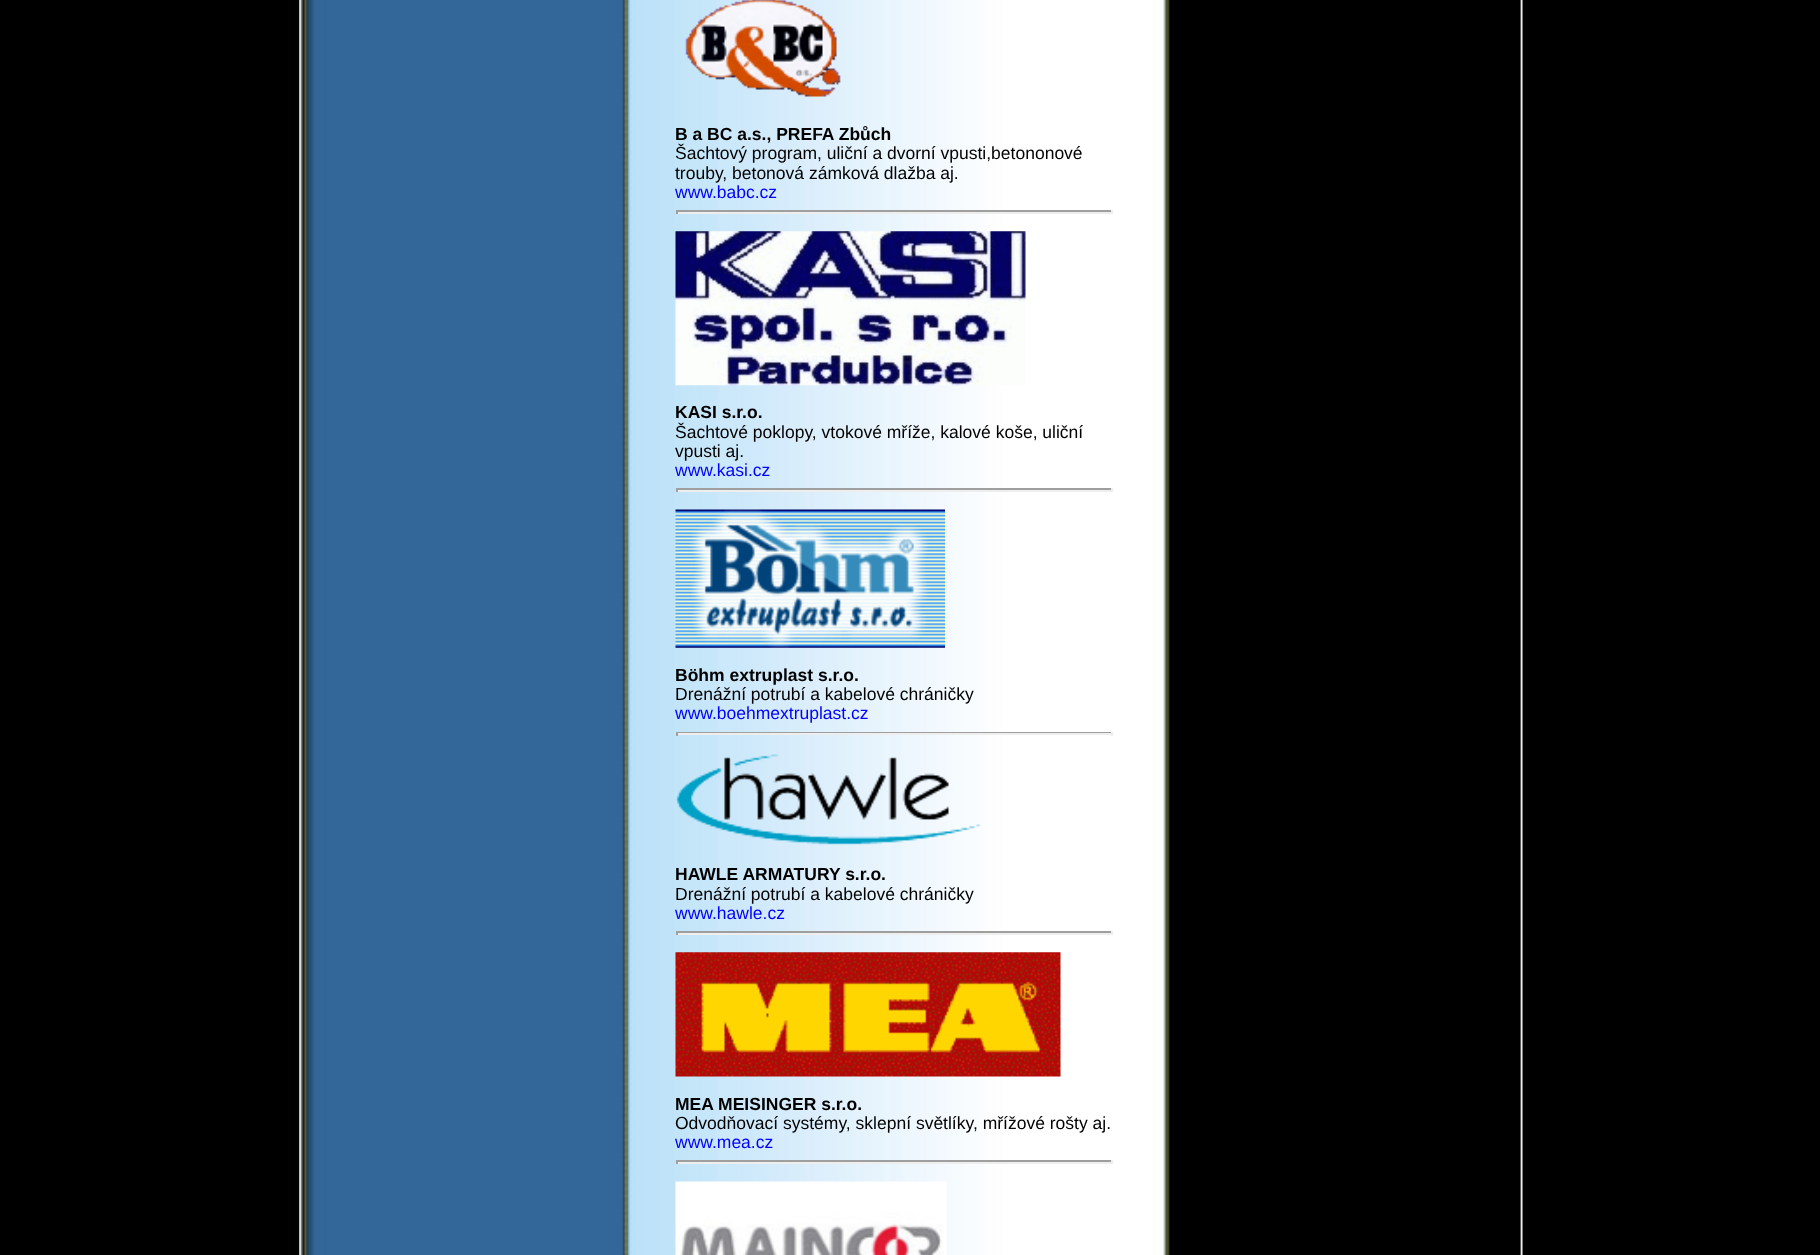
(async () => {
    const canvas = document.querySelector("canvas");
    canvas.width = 1820;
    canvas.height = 1255;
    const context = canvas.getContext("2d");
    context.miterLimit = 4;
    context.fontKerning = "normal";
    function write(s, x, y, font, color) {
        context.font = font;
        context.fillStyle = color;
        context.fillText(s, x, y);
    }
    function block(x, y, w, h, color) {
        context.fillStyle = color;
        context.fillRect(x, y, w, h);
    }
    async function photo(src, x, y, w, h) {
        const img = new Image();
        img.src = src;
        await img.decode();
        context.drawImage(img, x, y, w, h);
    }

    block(0, 0, 1820, 1255, "rgb(0, 0, 0)");
    await photo("media/1.png", 299, 0, 1224, 1255);
    await photo("media/2.png", 685, 0, 156, 97);
    write("B a BC a.s., PREFA Zbůch", 675, 140, "bold 17.5px Liberation Sans", "rgb(0, 0, 0)");
    write("Šachtový program, uliční a dvorní vpusti,betononové", 675, 159, "17.5px Liberation Sans", "rgb(0, 0, 0)");
    write("trouby, betonová zámková dlažba aj.", 675, 179, "17.5px Liberation Sans", "rgb(0, 0, 0)");
    write("www.babc.cz", 675, 198, "17.5px Liberation Sans", "rgb(0, 0, 255)");
    block(676, 210, 437, 2, "rgb(159, 159, 159)");
    block(1111, 210, 2, 4, "rgb(238, 238, 238)");
    block(676, 212, 437, 2, "rgb(238, 238, 238)");
    block(676, 210, 2, 4, "rgb(159, 159, 159)");
    await photo("media/3.png", 675, 231, 351, 155);
    write("KASI s.r.o.", 675, 418, "bold 17.5px Liberation Sans", "rgb(0, 0, 0)");
    write("Šachtové poklopy, vtokové mříže, kalové koše, uliční", 675, 438, "17.5px Liberation Sans", "rgb(0, 0, 0)");
    write("vpusti aj.", 675, 457, "17.5px Liberation Sans", "rgb(0, 0, 0)");
    write("www.kasi.cz", 675, 476, "17.5px Liberation Sans", "rgb(0, 0, 255)");
    block(676, 488, 437, 2, "rgb(159, 159, 159)");
    block(1111, 488, 2, 4, "rgb(238, 238, 238)");
    block(676, 490, 437, 2, "rgb(238, 238, 238)");
    block(676, 488, 2, 4, "rgb(159, 159, 159)");
    await photo("media/4.png", 675, 509, 270, 139);
    write("Böhm extruplast s.r.o.", 675, 681, "bold 17.5px Liberation Sans", "rgb(0, 0, 0)");
    write("Drenážní potrubí a kabelové chráničky", 675, 700, "17.5px Liberation Sans", "rgb(0, 0, 0)");
    write("www.boehmextruplast.cz", 675, 719, "17.5px Liberation Sans", "rgb(0, 0, 255)");
    block(676, 732, 437, 1, "rgb(159, 159, 159)");
    block(1111, 732, 2, 4, "rgb(238, 238, 238)");
    block(676, 733, 437, 2, "rgb(238, 238, 238)");
    block(676, 732, 2, 4, "rgb(159, 159, 159)");
    await photo("media/5.png", 676, 754, 305, 91);
    write("HAWLE ARMATURY s.r.o.", 675, 880, "bold 17.5px Liberation Sans", "rgb(0, 0, 0)");
    write("Drenážní potrubí a kabelové chráničky", 675, 900, "17.5px Liberation Sans", "rgb(0, 0, 0)");
    write("www.hawle.cz", 675, 919, "17.5px Liberation Sans", "rgb(0, 0, 255)");
    block(676, 931, 437, 2, "rgb(159, 159, 159)");
    block(1111, 931, 2, 4, "rgb(238, 238, 238)");
    block(676, 933, 437, 2, "rgb(238, 238, 238)");
    block(676, 931, 2, 4, "rgb(159, 159, 159)");
    await photo("media/6.png", 675, 952, 386, 125);
    write("MEA MEISINGER s.r.o.", 675, 1110, "bold 17.5px Liberation Sans", "rgb(0, 0, 0)");
    write("Odvodňovací systémy, sklepní světlíky, mřížové rošty aj.", 675, 1129, "17.5px Liberation Sans", "rgb(0, 0, 0)");
    write("www.mea.cz", 675, 1148, "17.5px Liberation Sans", "rgb(0, 0, 255)");
    block(676, 1160, 437, 2, "rgb(159, 159, 159)");
    block(1111, 1160, 2, 4, "rgb(238, 238, 238)");
    block(676, 1162, 437, 2, "rgb(238, 238, 238)");
    block(676, 1160, 2, 4, "rgb(159, 159, 159)");
    await photo("media/7.png", 675, 1181, 272, 74);
})();
